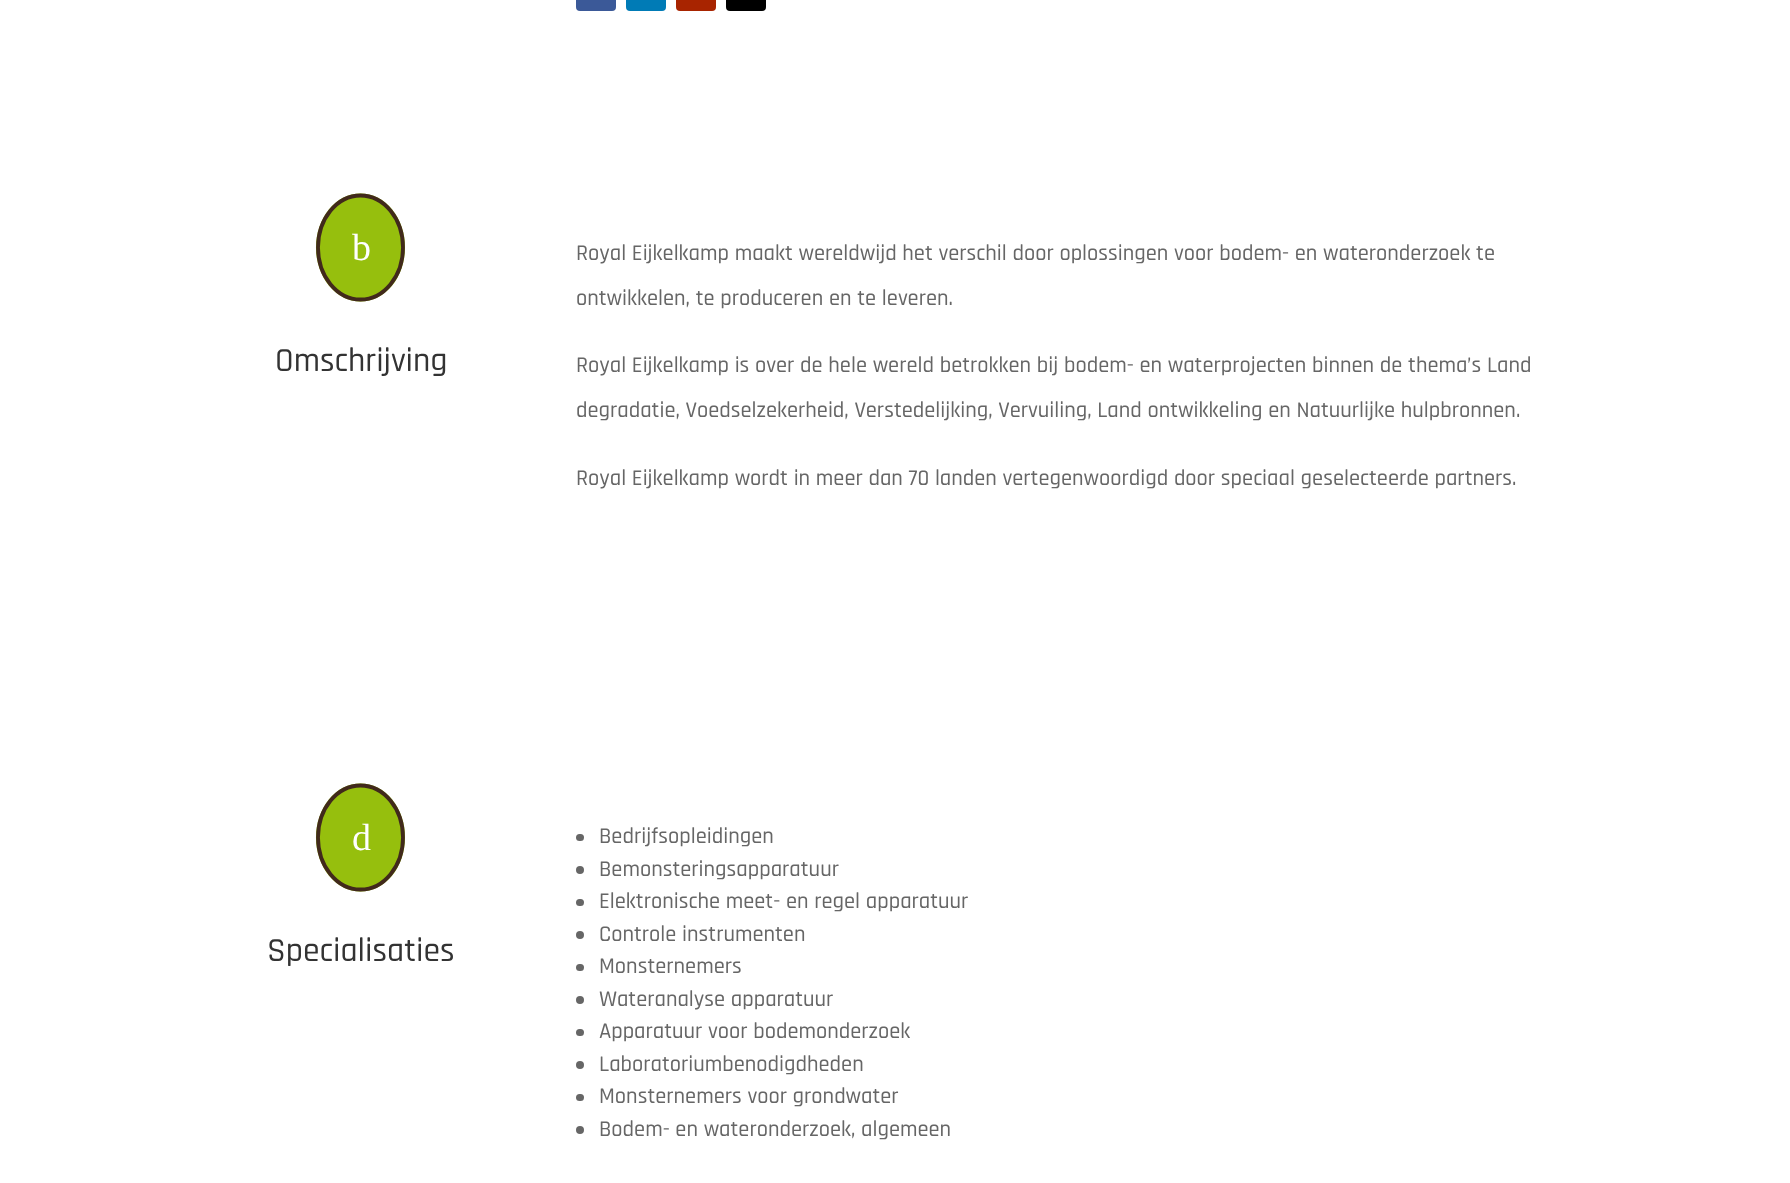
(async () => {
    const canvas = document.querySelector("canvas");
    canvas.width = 1790;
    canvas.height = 1183;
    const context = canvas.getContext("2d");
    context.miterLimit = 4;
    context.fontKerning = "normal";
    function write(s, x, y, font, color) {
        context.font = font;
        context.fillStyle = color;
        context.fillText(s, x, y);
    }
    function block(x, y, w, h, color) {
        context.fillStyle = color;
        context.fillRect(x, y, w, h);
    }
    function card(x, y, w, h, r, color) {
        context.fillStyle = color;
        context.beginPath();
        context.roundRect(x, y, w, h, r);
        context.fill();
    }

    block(0, 0, 1790, 1183, "rgb(255, 255, 255)");
    card(576, -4, 40, 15, 4, "rgb(59, 89, 152)");
    card(626, -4, 40, 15, 4, "rgb(0, 123, 182)");
    card(676, -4, 40, 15, 4, "rgb(168, 36, 0)");
    card(726, -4, 40, 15, 4, "rgb(0, 0, 0)");
    context.fillStyle = "rgb(150, 191, 13)";
    context.beginPath();
    context.ellipse(360.5, 247.5, 44.5, 54, 0, 0, Math.PI * 2);
    context.fill();
    context.beginPath();
    context.moveTo(360.5, 195.5);
    context.bezierCurveTo(384, 195.5, 403, 219, 403, 247.5);
    context.bezierCurveTo(403, 276, 384, 299.5, 360.5, 299.5);
    context.bezierCurveTo(337, 299.5, 318, 276, 318, 247.5);
    context.bezierCurveTo(318, 219, 337, 195.5, 360.5, 195.5);
    context.closePath();
    context.strokeStyle = "rgb(65, 41, 28)";
    context.lineWidth = 3.8;
    context.stroke();
    write("b", 352, 260, "38px Liberation Serif", "rgb(255, 255, 255)");
    write("Omschrijving", 275, 371, "500 33.75px Rajdhani", "rgb(51, 51, 51)");
    write("Royal Eijkelkamp maakt wereldwijd het verschil door oplossingen voor bodem- en wateronderzoek te", 576, 260, "500 22.5px Rajdhani", "rgb(102, 102, 102)");
    write("ontwikkelen, te produceren en te leveren.", 576, 305, "500 22.5px Rajdhani", "rgb(102, 102, 102)");
    write("Royal Eijkelkamp is over de hele wereld betrokken bij bodem- en waterprojecten binnen de thema’s Land", 576, 372, "500 22.5px Rajdhani", "rgb(102, 102, 102)");
    write("degradatie, Voedselzekerheid, Verstedelijking, Vervuiling, Land ontwikkeling en Natuurlijke hulpbronnen.", 576, 417, "500 22.5px Rajdhani", "rgb(102, 102, 102)");
    write("Royal Eijkelkamp wordt in meer dan 70 landen vertegenwoordigd door speciaal geselecteerde partners.", 576, 485, "500 22.5px Rajdhani", "rgb(102, 102, 102)");
    context.fillStyle = "rgb(150, 191, 13)";
    context.beginPath();
    context.ellipse(360.5, 837.5, 44.5, 54, 0, 0, Math.PI * 2);
    context.fill();
    context.beginPath();
    context.moveTo(360.5, 785.5);
    context.bezierCurveTo(384, 785.5, 403, 809, 403, 837.5);
    context.bezierCurveTo(403, 866, 384, 889.5, 360.5, 889.5);
    context.bezierCurveTo(337, 889.5, 318, 866, 318, 837.5);
    context.bezierCurveTo(318, 809, 337, 785.5, 360.5, 785.5);
    context.closePath();
    context.stroke();
    write("d", 352, 850, "38px Liberation Serif", "rgb(255, 255, 255)");
    write("Specialisaties", 267, 961, "500 33.75px Rajdhani", "rgb(51, 51, 51)");
    card(576, 834, 8, 7, 3.5, "rgb(102, 102, 102)");
    write("Bedrijfsopleidingen", 599, 843, "500 22.5px Rajdhani", "rgb(102, 102, 102)");
    context.beginPath();
    context.arc(580, 870, 4, 0, Math.PI * 2);
    context.fill();
    write("Bemonsteringsapparatuur", 599, 876, "500 22.5px Rajdhani", "rgb(102, 102, 102)");
    card(576, 899, 8, 7, 3.5, "rgb(102, 102, 102)");
    write("Elektronische meet- en regel apparatuur", 599, 908, "500 22.5px Rajdhani", "rgb(102, 102, 102)");
    context.beginPath();
    context.arc(580, 935, 4, 0, Math.PI * 2);
    context.fill();
    write("Controle instrumenten", 599, 941, "500 22.5px Rajdhani", "rgb(102, 102, 102)");
    card(576, 964, 8, 7, 3.5, "rgb(102, 102, 102)");
    write("Monsternemers", 599, 973, "500 22.5px Rajdhani", "rgb(102, 102, 102)");
    context.beginPath();
    context.arc(580, 1000, 4, 0, Math.PI * 2);
    context.fill();
    write("Wateranalyse apparatuur", 599, 1006, "500 22.5px Rajdhani", "rgb(102, 102, 102)");
    card(576, 1029, 8, 7, 3.5, "rgb(102, 102, 102)");
    write("Apparatuur voor bodemonderzoek", 599, 1038, "500 22.5px Rajdhani", "rgb(102, 102, 102)");
    context.beginPath();
    context.arc(580, 1065, 4, 0, Math.PI * 2);
    context.fill();
    write("Laboratoriumbenodigdheden", 599, 1071, "500 22.5px Rajdhani", "rgb(102, 102, 102)");
    card(576, 1094, 8, 7, 3.5, "rgb(102, 102, 102)");
    write("Monsternemers voor grondwater", 599, 1103, "500 22.5px Rajdhani", "rgb(102, 102, 102)");
    context.beginPath();
    context.arc(580, 1130, 4, 0, Math.PI * 2);
    context.fill();
    write("Bodem- en wateronderzoek, algemeen", 599, 1136, "500 22.5px Rajdhani", "rgb(102, 102, 102)");
})();
